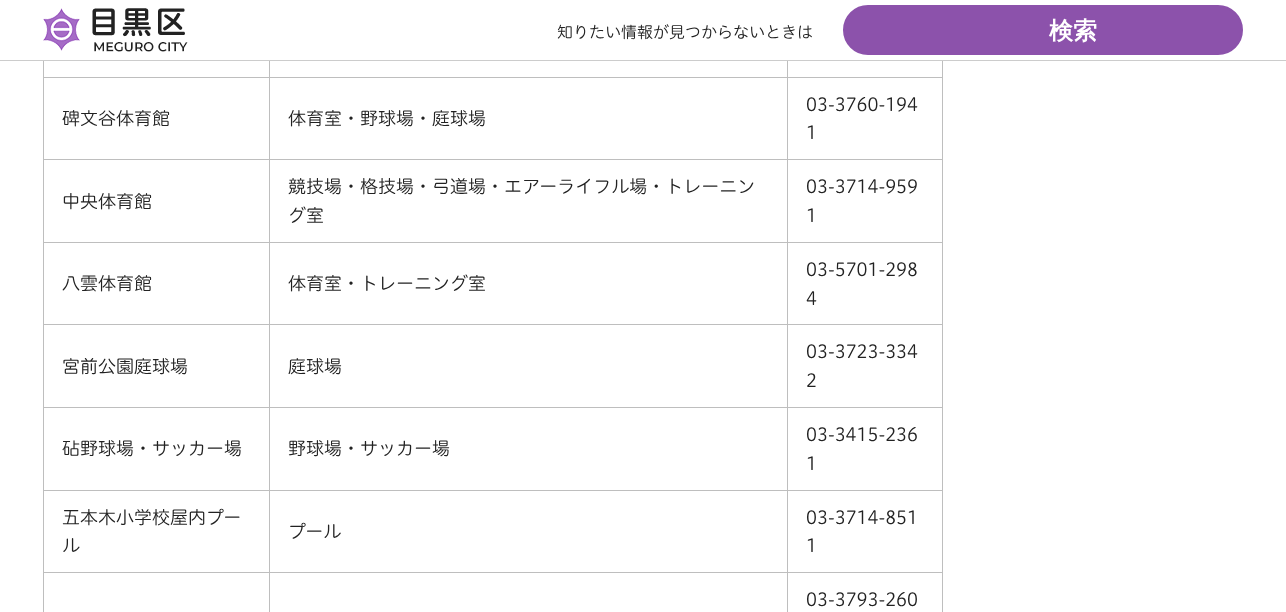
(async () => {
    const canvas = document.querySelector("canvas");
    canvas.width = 1286;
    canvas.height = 612;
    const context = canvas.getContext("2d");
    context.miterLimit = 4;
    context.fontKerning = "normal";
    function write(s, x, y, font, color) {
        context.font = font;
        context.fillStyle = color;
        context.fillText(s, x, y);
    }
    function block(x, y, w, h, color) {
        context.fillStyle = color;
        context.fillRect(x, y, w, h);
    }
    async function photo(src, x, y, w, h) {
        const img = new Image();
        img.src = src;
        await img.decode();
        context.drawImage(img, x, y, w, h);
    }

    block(0, 0, 1286, 612, "rgb(255, 255, 255)");
    block(0, 60, 1286, 1, "rgb(204, 204, 204)");
    await photo("media/1.png", 43, 8, 145, 44);
    write("知りたい情報が見つからないときは", 557, 38, "300 16px 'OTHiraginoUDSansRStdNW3'", "rgb(34, 34, 34)");
    context.fillStyle = "rgb(140, 82, 171)";
    context.beginPath();
    context.roundRect(844, 6, 398, 48, 24);
    context.fill();
    context.strokeStyle = "rgb(140, 82, 171)";
    context.lineWidth = 2;
    context.stroke();
    write("検索", 1049, 39, "bold 24px WenQuanYi Zen Hei", "rgb(255, 255, 255)");
    block(942, 61, 1, 551, "rgb(190, 190, 190)");
    block(43, 61, 1, 551, "rgb(190, 190, 190)");
    block(787, 77, 156, 1, "rgb(190, 190, 190)");
    block(787, 159, 156, 1, "rgb(190, 190, 190)");
    block(787, 242, 156, 1, "rgb(190, 190, 190)");
    block(787, 324, 156, 1, "rgb(190, 190, 190)");
    block(787, 407, 156, 1, "rgb(190, 190, 190)");
    block(787, 490, 156, 1, "rgb(190, 190, 190)");
    block(787, 572, 156, 1, "rgb(190, 190, 190)");
    block(787, 572, 1, 40, "rgb(190, 190, 190)");
    block(269, 572, 519, 1, "rgb(190, 190, 190)");
    block(787, 490, 1, 83, "rgb(190, 190, 190)");
    block(269, 490, 519, 1, "rgb(190, 190, 190)");
    block(787, 407, 1, 84, "rgb(190, 190, 190)");
    block(269, 407, 519, 1, "rgb(190, 190, 190)");
    block(787, 324, 1, 84, "rgb(190, 190, 190)");
    block(269, 324, 519, 1, "rgb(190, 190, 190)");
    block(787, 242, 1, 83, "rgb(190, 190, 190)");
    block(269, 242, 519, 1, "rgb(190, 190, 190)");
    block(787, 159, 1, 84, "rgb(190, 190, 190)");
    block(269, 159, 519, 1, "rgb(190, 190, 190)");
    block(787, 77, 1, 83, "rgb(190, 190, 190)");
    block(269, 77, 519, 1, "rgb(190, 190, 190)");
    block(269, 572, 1, 40, "rgb(190, 190, 190)");
    block(43, 572, 227, 1, "rgb(190, 190, 190)");
    block(269, 490, 1, 83, "rgb(190, 190, 190)");
    block(43, 490, 227, 1, "rgb(190, 190, 190)");
    block(269, 407, 1, 84, "rgb(190, 190, 190)");
    block(43, 407, 227, 1, "rgb(190, 190, 190)");
    block(269, 324, 1, 84, "rgb(190, 190, 190)");
    block(43, 324, 227, 1, "rgb(190, 190, 190)");
    block(269, 242, 1, 83, "rgb(190, 190, 190)");
    block(43, 242, 227, 1, "rgb(190, 190, 190)");
    block(269, 159, 1, 84, "rgb(190, 190, 190)");
    block(43, 159, 227, 1, "rgb(190, 190, 190)");
    block(269, 77, 1, 83, "rgb(190, 190, 190)");
    block(43, 77, 227, 1, "rgb(190, 190, 190)");
    block(269, 61, 1, 17, "rgb(190, 190, 190)");
    block(787, 61, 1, 17, "rgb(190, 190, 190)");
    write("碑文谷体育館", 62, 125, "300 18px 'OTHiraginoUDSansRStdNW3'", "rgb(34, 34, 34)");
    write("体育室・野球場・庭球場", 288, 125, "300 18px 'OTHiraginoUDSansRStdNW3'", "rgb(34, 34, 34)");
    write("03-3760-194", 806, 111, "300 18px 'OTHiraginoUDSansRStdNW3'", "rgb(34, 34, 34)");
    write("1", 806, 139, "300 18px 'OTHiraginoUDSansRStdNW3'", "rgb(34, 34, 34)");
    write("中央体育館", 62, 208, "300 18px 'OTHiraginoUDSansRStdNW3'", "rgb(34, 34, 34)");
    write("競技場・格技場・弓道場・エアーライフル場・トレーニン", 288, 193, "300 18px 'OTHiraginoUDSansRStdNW3'", "rgb(34, 34, 34)");
    write("グ室", 288, 222, "300 18px 'OTHiraginoUDSansRStdNW3'", "rgb(34, 34, 34)");
    write("03-3714-959", 806, 193, "300 18px 'OTHiraginoUDSansRStdNW3'", "rgb(34, 34, 34)");
    write("1", 806, 222, "300 18px 'OTHiraginoUDSansRStdNW3'", "rgb(34, 34, 34)");
    write("八雲体育館", 62, 290, "300 18px 'OTHiraginoUDSansRStdNW3'", "rgb(34, 34, 34)");
    write("体育室・トレーニング室", 288, 290, "300 18px 'OTHiraginoUDSansRStdNW3'", "rgb(34, 34, 34)");
    write("03-5701-298", 806, 276, "300 18px 'OTHiraginoUDSansRStdNW3'", "rgb(34, 34, 34)");
    write("4", 806, 305, "300 18px 'OTHiraginoUDSansRStdNW3'", "rgb(34, 34, 34)");
    write("宮前公園庭球場", 62, 373, "300 18px 'OTHiraginoUDSansRStdNW3'", "rgb(34, 34, 34)");
    write("庭球場", 288, 373, "300 18px 'OTHiraginoUDSansRStdNW3'", "rgb(34, 34, 34)");
    write("03-3723-334", 806, 358, "300 18px 'OTHiraginoUDSansRStdNW3'", "rgb(34, 34, 34)");
    write("2", 806, 387, "300 18px 'OTHiraginoUDSansRStdNW3'", "rgb(34, 34, 34)");
    write("砧野球場・サッカー場", 62, 455, "300 18px 'OTHiraginoUDSansRStdNW3'", "rgb(34, 34, 34)");
    write("野球場・サッカー場", 288, 455, "300 18px 'OTHiraginoUDSansRStdNW3'", "rgb(34, 34, 34)");
    write("03-3415-236", 806, 441, "300 18px 'OTHiraginoUDSansRStdNW3'", "rgb(34, 34, 34)");
    write("1", 806, 470, "300 18px 'OTHiraginoUDSansRStdNW3'", "rgb(34, 34, 34)");
    write("五本木小学校屋内プー", 62, 524, "300 18px 'OTHiraginoUDSansRStdNW3'", "rgb(34, 34, 34)");
    write("ル", 62, 552, "300 18px 'OTHiraginoUDSansRStdNW3'", "rgb(34, 34, 34)");
    write("プール", 288, 538, "300 18px 'OTHiraginoUDSansRStdNW3'", "rgb(34, 34, 34)");
    write("03-3714-851", 806, 524, "300 18px 'OTHiraginoUDSansRStdNW3'", "rgb(34, 34, 34)");
    write("1", 806, 552, "300 18px 'OTHiraginoUDSansRStdNW3'", "rgb(34, 34, 34)");
    write("03-3793-260", 806, 606, "300 18px 'OTHiraginoUDSansRStdNW3'", "rgb(34, 34, 34)");
})();
